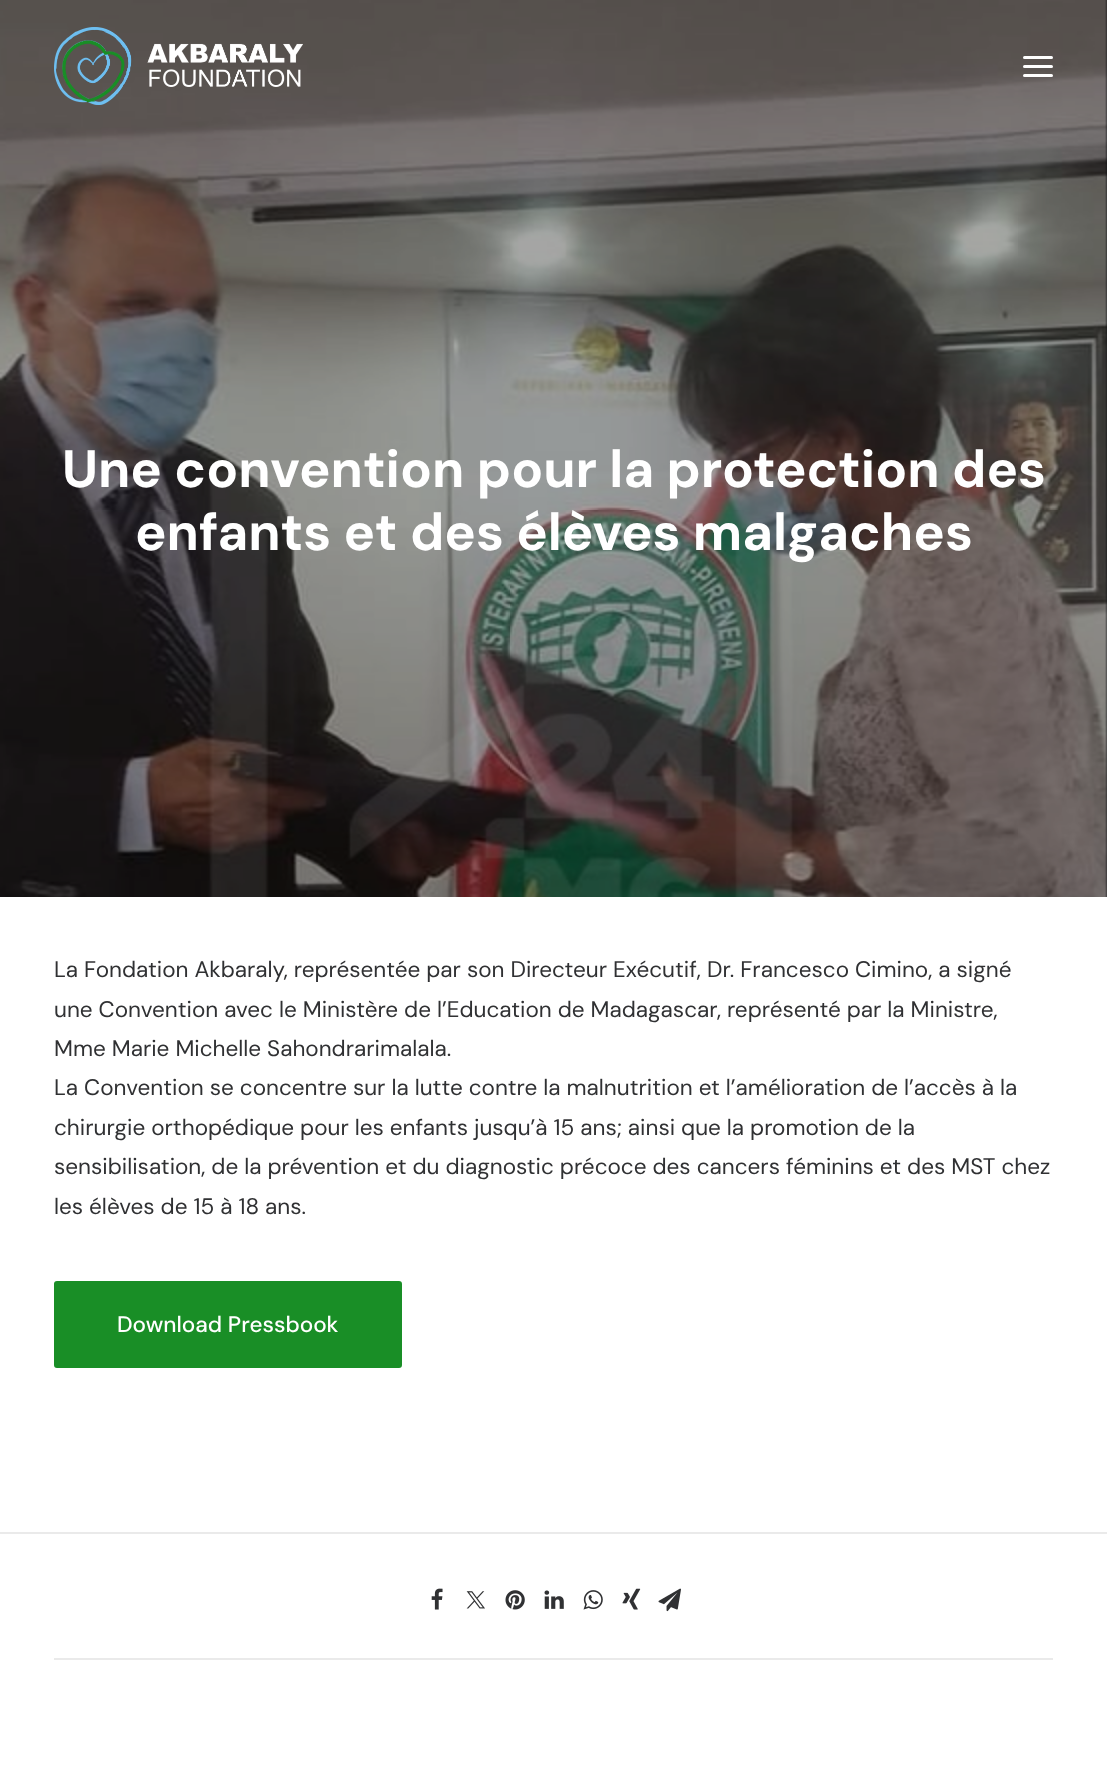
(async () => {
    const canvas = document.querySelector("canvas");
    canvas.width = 1107;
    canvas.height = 1792;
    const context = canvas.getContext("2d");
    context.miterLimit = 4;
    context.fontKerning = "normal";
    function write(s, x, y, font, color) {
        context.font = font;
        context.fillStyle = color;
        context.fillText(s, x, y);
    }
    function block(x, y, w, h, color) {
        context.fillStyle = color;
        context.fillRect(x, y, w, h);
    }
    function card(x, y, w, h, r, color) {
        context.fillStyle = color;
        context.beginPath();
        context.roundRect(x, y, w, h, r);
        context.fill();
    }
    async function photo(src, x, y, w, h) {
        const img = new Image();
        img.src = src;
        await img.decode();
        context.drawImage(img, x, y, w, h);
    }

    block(0, 0, 1107, 1792, "rgb(13, 14, 16)");
    await photo("media/2.png", 0, 0, 1107, 897);
    await photo("media/1.png", 54, 27, 249, 78);
    card(1023, 65, 30, 3, 1.5, "rgb(255, 255, 255)");
    card(1023, 56, 30, 3, 1.5, "rgb(255, 255, 255)");
    card(1023, 74, 30, 3, 1.5, "rgb(255, 255, 255)");
    write("Une convention pour la protection des", 62, 487, "bold 52.5px DM Sans", "rgb(255, 255, 255)");
    write("enfants et des élèves malgaches", 135, 550, "bold 52.5px DM Sans", "rgb(255, 255, 255)");
    block(0, 897, 1107, 895, "rgb(255, 255, 255)");
    write("La Fondation Akbaraly, représentée par son Directeur Exécutif, Dr. Francesco Cimino, a signé", 54, 977, "22.5px DM Sans", "rgb(48, 49, 51)");
    write("une Convention avec le Ministère de l’Education de Madagascar, représenté par la Ministre,", 54, 1017, "22.5px DM Sans", "rgb(48, 49, 51)");
    write("Mme Marie Michelle Sahondrarimalala.", 54, 1056, "22.5px DM Sans", "rgb(48, 49, 51)");
    write("La Convention se concentre sur la lutte contre la malnutrition et l’amélioration de l’accès à la", 54, 1095, "22.5px DM Sans", "rgb(48, 49, 51)");
    write("chirurgie orthopédique pour les enfants jusqu’à 15 ans; ainsi que la promotion de la", 54, 1135, "22.5px DM Sans", "rgb(48, 49, 51)");
    write("sensibilisation, de la prévention et du diagnostic précoce des cancers féminins et des MST chez", 54, 1174, "22.5px DM Sans", "rgb(48, 49, 51)");
    write("les élèves de 15 à 18 ans.", 54, 1214, "22.5px DM Sans", "rgb(48, 49, 51)");
    context.fillStyle = "rgb(25, 142, 38)";
    context.beginPath();
    context.roundRect(56.5, 1283.5, 343, 82, 0.5);
    context.fill();
    context.strokeStyle = "rgb(25, 142, 38)";
    context.lineWidth = 5;
    context.stroke();
    write("Download Pressbook", 117, 1332, "500 22.5px DM Sans", "rgb(255, 255, 255)");
    block(0, 1532, 1107, 2, "rgb(234, 234, 234)");
    block(54, 1658, 999, 2, "rgb(234, 234, 234)");
    await photo("media/3.png", 431, 1588, 12, 22);
    await photo("media/4.png", 466, 1591, 19, 18);
    await photo("media/5.png", 505, 1590, 20, 20);
    await photo("media/6.png", 544, 1590, 20, 19);
    await photo("media/7.png", 583, 1590, 20, 20);
    await photo("media/8.png", 622, 1588, 19, 22);
    await photo("media/9.png", 658, 1588, 23, 24);
})();
